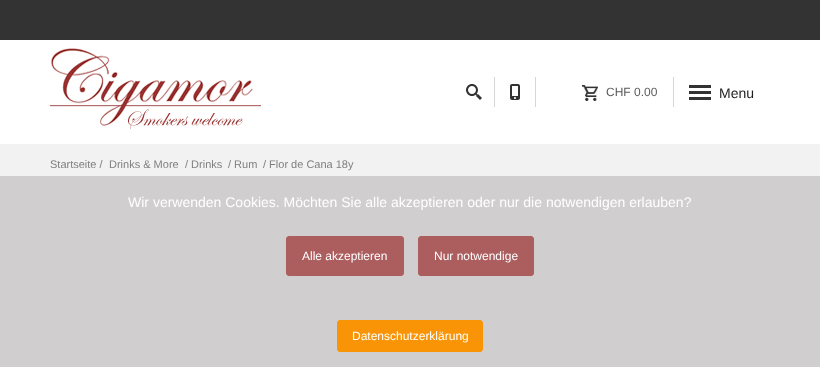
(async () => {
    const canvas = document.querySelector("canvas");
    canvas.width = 820;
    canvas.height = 367;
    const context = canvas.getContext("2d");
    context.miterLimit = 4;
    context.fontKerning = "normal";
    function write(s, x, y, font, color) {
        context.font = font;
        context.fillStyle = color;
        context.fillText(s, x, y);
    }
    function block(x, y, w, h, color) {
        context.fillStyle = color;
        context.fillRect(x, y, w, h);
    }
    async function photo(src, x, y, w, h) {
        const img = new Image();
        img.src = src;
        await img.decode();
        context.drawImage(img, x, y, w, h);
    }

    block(0, 0, 820, 367, "rgb(255, 255, 255)");
    block(0, 0, 820, 40, "rgb(51, 51, 51)");
    await photo("media/1.png", 50, 48, 211, 81);
    block(494, 77, 1, 30, "rgb(214, 214, 214)");
    await photo("media/2.png", 466, 84, 16, 16);
    block(535, 77, 1, 30, "rgb(214, 214, 214)");
    await photo("media/3.png", 510, 84, 10, 16);
    await photo("media/4.png", 582, 85, 16, 16);
    write("CHF 0.00", 606, 96, "12px Liberation Sans", "rgb(90, 90, 90)");
    block(673, 77, 1, 30, "rgb(214, 214, 214)");
    block(689, 85, 22, 3, "rgb(51, 51, 51)");
    block(689, 91, 22, 3, "rgb(51, 51, 51)");
    write("Menu", 719, 98, "14px Liberation Sans", "rgb(30, 30, 30)");
    block(689, 97, 22, 3, "rgb(51, 51, 51)");
    block(0, 144, 820, 32, "rgb(242, 242, 242)");
    write("Startseite /", 50, 168, "11px Liberation Sans", "rgb(127, 127, 127)");
    write("Drinks & More", 109, 168, "11px Liberation Sans", "rgb(127, 127, 127)");
    write("/ Drinks", 185, 168, "11px Liberation Sans", "rgb(127, 127, 127)");
    write("/ Rum", 228, 168, "11px Liberation Sans", "rgb(127, 127, 127)");
    write("/ Flor de Cana 18y", 263, 168, "11px Liberation Sans", "rgb(127, 127, 127)");
    block(0, 176, 820, 191, "rgb(208, 206, 206)");
    write("Wir verwenden Cookies. Möchten Sie alle akzeptieren oder nur die notwendigen erlauben?", 128, 207, "14px Liberation Sans", "rgb(255, 255, 255)");
    context.fillStyle = "rgb(172, 93, 94)";
    context.beginPath();
    context.roundRect(286.5, 236.5, 117, 39, 2.5);
    context.fill();
    context.strokeStyle = "rgb(172, 93, 94)";
    context.stroke();
    write("Alle akzeptieren", 302, 260, "12px Liberation Sans", "rgb(255, 255, 255)");
    context.fillStyle = "rgb(172, 93, 94)";
    context.beginPath();
    context.roundRect(418.5, 236.5, 115, 39, 2.5);
    context.fill();
    context.stroke();
    write("Nur notwendige", 434, 260, "12px Liberation Sans", "rgb(255, 255, 255)");
    context.fillStyle = "rgb(248, 148, 6)";
    context.beginPath();
    context.roundRect(337.5, 320.5, 145, 31, 2.5);
    context.fill();
    context.strokeStyle = "rgb(248, 148, 6)";
    context.stroke();
    write("Datenschutzerklärung", 352, 340, "12px Liberation Sans", "rgb(255, 255, 255)");
})();
